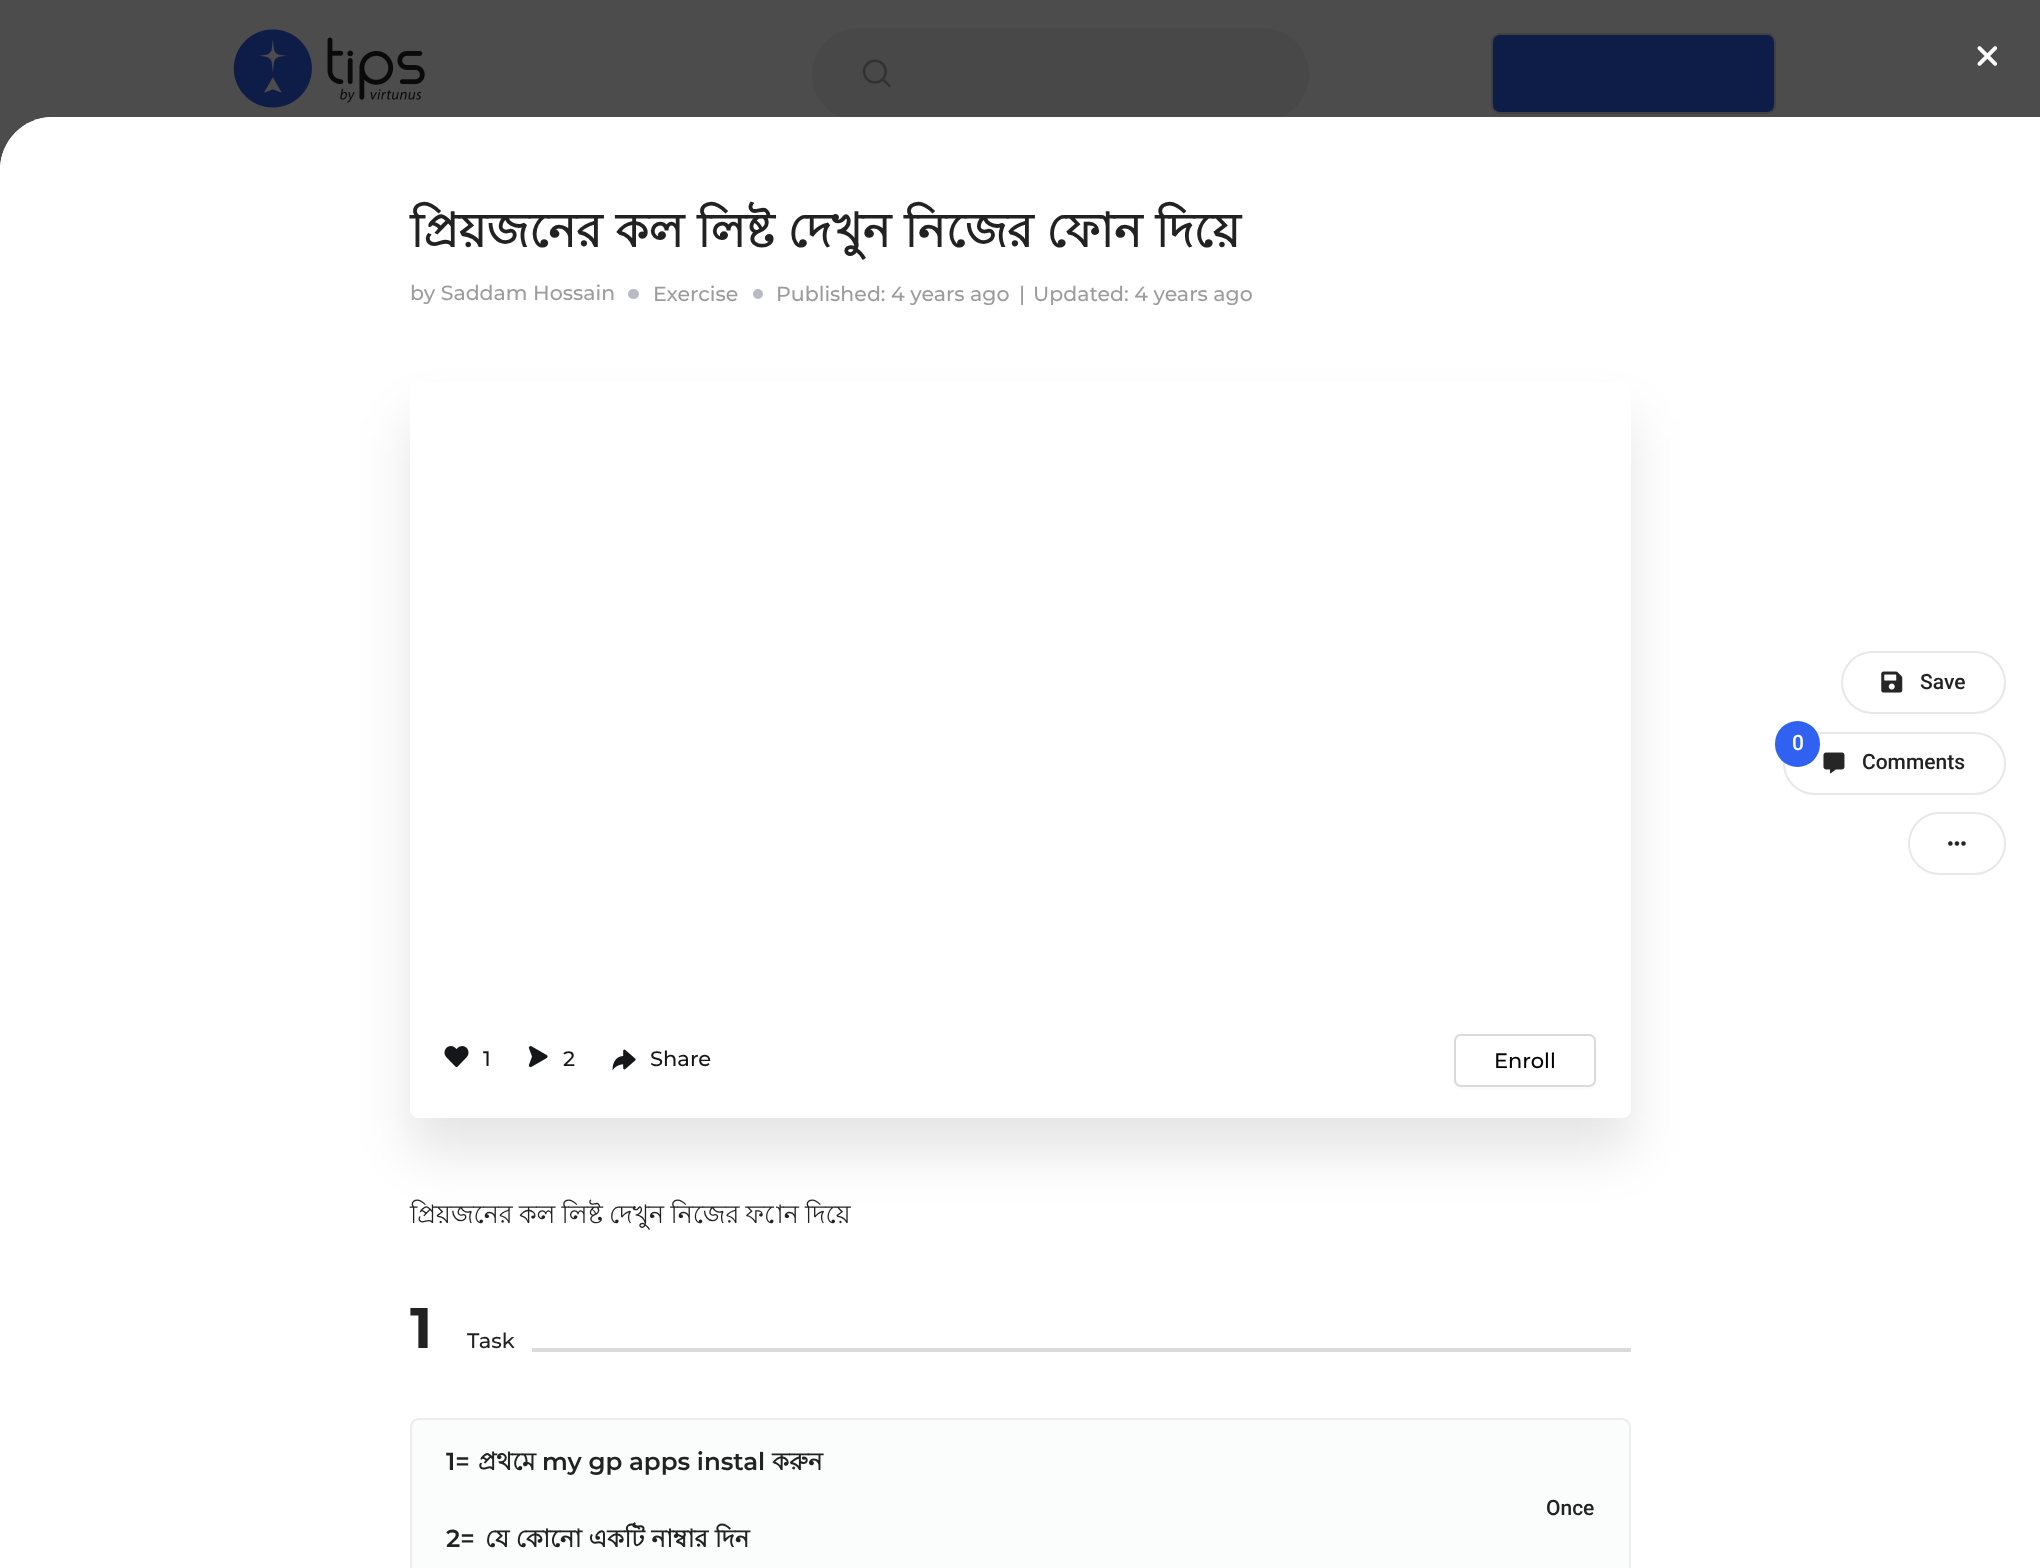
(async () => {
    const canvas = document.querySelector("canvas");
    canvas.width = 2040;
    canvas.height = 1568;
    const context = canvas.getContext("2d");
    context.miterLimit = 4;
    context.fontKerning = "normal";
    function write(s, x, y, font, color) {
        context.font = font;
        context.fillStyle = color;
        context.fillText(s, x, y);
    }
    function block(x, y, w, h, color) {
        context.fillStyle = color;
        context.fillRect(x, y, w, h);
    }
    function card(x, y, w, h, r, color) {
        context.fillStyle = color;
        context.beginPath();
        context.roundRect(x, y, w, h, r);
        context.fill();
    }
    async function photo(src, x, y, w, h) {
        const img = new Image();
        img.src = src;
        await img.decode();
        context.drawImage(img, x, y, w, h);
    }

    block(0, 0, 2040, 1568, "rgb(255, 255, 255)");
    context.save();
    context.beginPath();
    context.rect(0, 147, 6, 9);
    context.clip();
    context.fillStyle = "rgba(0, 0, 0, 0.05)";
    context.filter = "blur(35px)";
    context.beginPath();
    context.rect(0, 35, 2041, 147);
    context.fill();
    context.filter = "none";
    context.restore();
    await photo("media/1.png", 233, 29, 192, 79);
    card(812, 28, 497, 93, 46.5, "rgb(241, 241, 242)");
    await photo("media/2.png", 862, 59, 29, 29);
    context.fillStyle = "rgb(251, 251, 251)";
    context.beginPath();
    context.moveTo(1491, 105);
    context.lineTo(1491, 108);
    context.bezierCurveTo(1491, 113, 1495, 117, 1500, 117);
    context.lineTo(1767, 117);
    context.bezierCurveTo(1772, 117, 1776, 113, 1776, 108);
    context.lineTo(1776, 107);
    context.bezierCurveTo(1775, 111, 1772, 114, 1768, 114);
    context.lineTo(1500, 114);
    context.bezierCurveTo(1495, 114, 1491, 110, 1491, 105);
    context.closePath();
    context.fill();
    context.fillStyle = "rgb(49, 97, 241)";
    context.beginPath();
    context.roundRect(1492, 34, 283, 79, 8);
    context.fill();
    context.strokeStyle = "rgb(217, 217, 217)";
    context.lineWidth = 2;
    context.stroke();
    block(0, 0, 2040, 170, "rgba(0, 0, 0, 0.7)");
    await photo("media/3.png", 1977, 46, 21, 20);
    context.fillStyle = "rgb(255, 255, 255)";
    context.beginPath();
    context.moveTo(53, 117);
    context.lineTo(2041, 117);
    context.lineTo(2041, 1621);
    context.lineTo(0, 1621);
    context.lineTo(0, 170);
    context.bezierCurveTo(0, 140.5, 23.5, 117, 53, 117);
    context.closePath();
    context.fill();
    context.beginPath();
    context.moveTo(53, 117);
    context.lineTo(1988, 117);
    context.bezierCurveTo(2017.5, 117, 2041, 140.5, 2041, 170);
    context.lineTo(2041, 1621);
    context.lineTo(0, 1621);
    context.lineTo(0, 170);
    context.bezierCurveTo(0, 140.5, 23.5, 117, 53, 117);
    context.closePath();
    context.fill();
    context.wordSpacing = "0.25px";
    write("প্রিয়জনের কল লিষ্ট দেখুন নিজের ফোন দিয়ে", 410, 247, "bold 47.25px Lohit Bengali", "rgb(34, 34, 34)");
    context.wordSpacing = "0px";
    write("by Saddam Hossain", 410, 300, "500 20.5px Montserrat", "rgb(156, 156, 156)");
    card(628, 289, 11, 10, 5, "rgb(185, 186, 198)");
    write("Exercise", 653, 301, "500 20.5px Montserrat", "rgb(156, 156, 156)");
    context.fillStyle = "rgb(185, 186, 198)";
    context.beginPath();
    context.arc(758, 294, 5, 0, Math.PI * 2);
    context.fill();
    write("Published: 4 years ago", 776, 301, "500 20.5px Montserrat", "rgb(156, 156, 156)");
    write("|", 1019, 301, "500 20.5px Montserrat", "rgb(156, 156, 156)");
    write("Updated: 4 years ago", 1033, 301, "500 20.5px Montserrat", "rgb(156, 156, 156)");
    context.save();
    context.beginPath();
    context.moveTo(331, 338);
    context.lineTo(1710, 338);
    context.lineTo(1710, 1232);
    context.lineTo(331, 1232);
    context.closePath();
    context.moveTo(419, 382);
    context.lineTo(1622, 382);
    context.bezierCurveTo(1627, 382, 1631, 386, 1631, 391);
    context.lineTo(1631, 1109);
    context.bezierCurveTo(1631, 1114, 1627, 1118, 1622, 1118);
    context.lineTo(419, 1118);
    context.bezierCurveTo(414, 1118, 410, 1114, 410, 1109);
    context.lineTo(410, 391);
    context.bezierCurveTo(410, 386, 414, 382, 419, 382);
    context.closePath();
    context.clip("evenodd");
    context.fillStyle = "rgba(0, 0, 0, 0.1)";
    context.filter = "blur(26px)";
    context.beginPath();
    context.roundRect(410, 417, 1221, 736, 9);
    context.fill();
    context.filter = "none";
    context.restore();
    await photo("media/4.png", 444, 1046, 25, 21);
    write("1", 483, 1066, "500 21px Montserrat", "rgb(21, 22, 23)");
    await photo("media/5.png", 528, 1046, 20, 22);
    write("2", 563, 1066, "500 21px Montserrat", "rgb(21, 22, 23)");
    await photo("media/6.png", 612, 1049, 24, 22);
    write("Share", 650, 1066, "500 21px Montserrat", "rgb(21, 22, 23)");
    context.fillStyle = "rgb(251, 251, 251)";
    context.beginPath();
    context.moveTo(1454, 1043);
    context.lineTo(1454, 1083);
    context.bezierCurveTo(1454, 1087, 1457, 1090, 1461, 1090);
    context.lineTo(1589, 1090);
    context.bezierCurveTo(1593, 1090, 1596, 1087, 1596, 1083);
    context.lineTo(1596, 1080);
    context.bezierCurveTo(1596, 1084, 1593, 1087, 1589, 1087);
    context.lineTo(1461, 1087);
    context.bezierCurveTo(1457, 1087, 1454, 1084, 1454, 1080);
    context.closePath();
    context.fill();
    context.beginPath();
    context.roundRect(1455, 1035, 140, 51, 6);
    context.strokeStyle = "rgb(218, 218, 218)";
    context.stroke();
    write("Enroll", 1494, 1068, "500 21px Montserrat", "rgb(0, 0, 0)");
    context.wordSpacing = "-0.75px";
    write("প্রিয়জনের কল লিষ্ট দেখুন নিজের ফোন দিয়ে", 410, 1223, "25.25px Lohit Bengali", "rgb(34, 34, 34)");
    context.wordSpacing = "0px";
    write("1", 410, 1348, "bold 57px Montserrat", "rgb(34, 34, 34)");
    write("Task", 467, 1348, "500 21px Montserrat", "rgb(34, 34, 34)");
    block(532, 1348, 1099, 4, "rgb(219, 219, 219)");
    context.fillStyle = "rgb(251, 252, 252)";
    context.beginPath();
    context.roundRect(411, 1419, 1219, 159, 8);
    context.fill();
    context.strokeStyle = "rgb(237, 237, 237)";
    context.stroke();
    write("1=", 446, 1470, "600 24.5px Montserrat", "rgb(34, 34, 34)");
    write("প্রথমে", 478, 1470, "bold 24.5px Lohit Bengali", "rgb(34, 34, 34)");
    write("my gp apps instal", 542, 1470, "600 24.5px Montserrat", "rgb(34, 34, 34)");
    write("করুন", 772, 1470, "bold 24.5px Lohit Bengali", "rgb(34, 34, 34)");
    write("2=", 446, 1547, "600 24.5px Montserrat", "rgb(34, 34, 34)");
    write("যে কোনো একটি নাম্বার দিন", 485, 1547, "bold 24.5px Lohit Bengali", "rgb(34, 34, 34)");
    write("Once", 1546, 1515, "500 21px Roboto", "rgb(34, 34, 34)");
    context.beginPath();
    context.roundRect(1842, 652, 163, 61, 30.5);
    context.strokeStyle = "rgb(232, 232, 232)";
    context.stroke();
    await photo("media/7.png", 1881, 671, 22, 22);
    write("Save", 1920, 689, "500 21px Roboto", "rgb(34, 34, 34)");
    context.beginPath();
    context.roundRect(1784, 733, 221, 61, 30.5);
    context.stroke();
    card(1775, 721, 45, 46, 22.5, "rgb(49, 97, 241)");
    write("0", 1792, 750, "500 21px Roboto", "rgb(255, 255, 255)");
    await photo("media/8.png", 1823, 752, 22, 22);
    write("Comments", 1862, 769, "500 21px Roboto", "rgb(34, 34, 34)");
    context.beginPath();
    context.roundRect(1909, 813, 96, 61, 30.5);
    context.stroke();
    await photo("media/9.png", 1948, 841, 18, 5);
})();
